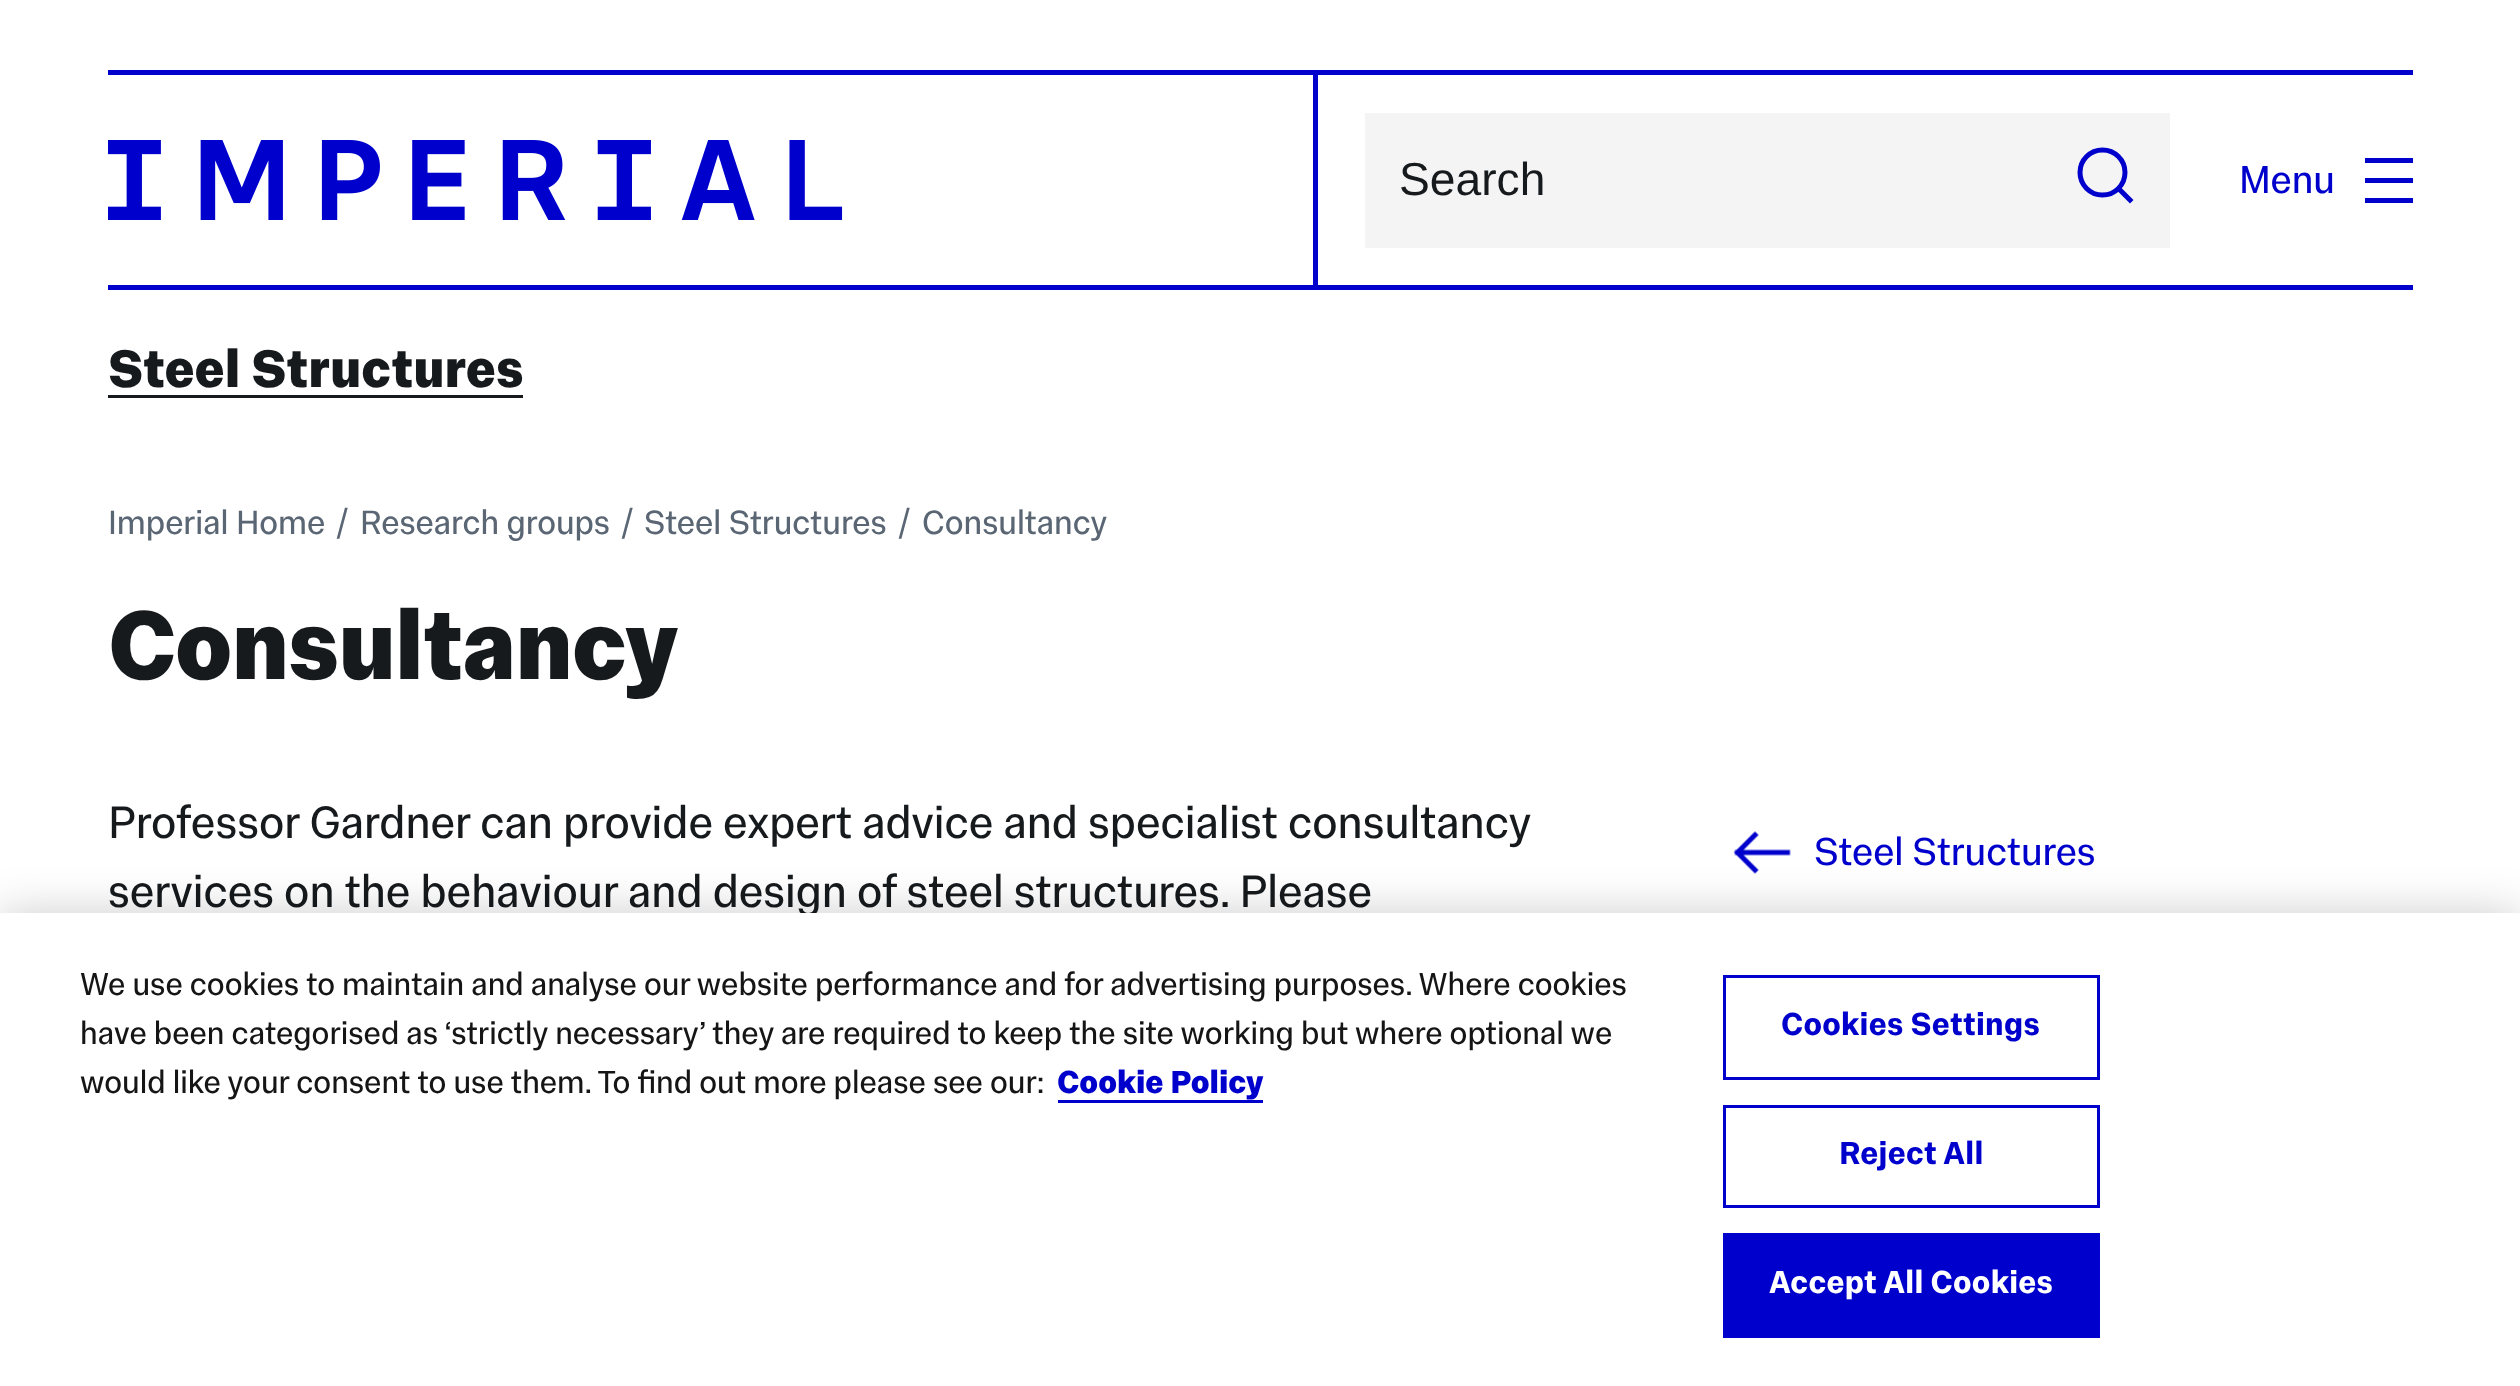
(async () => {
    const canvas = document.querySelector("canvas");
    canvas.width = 2520;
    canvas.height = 1386;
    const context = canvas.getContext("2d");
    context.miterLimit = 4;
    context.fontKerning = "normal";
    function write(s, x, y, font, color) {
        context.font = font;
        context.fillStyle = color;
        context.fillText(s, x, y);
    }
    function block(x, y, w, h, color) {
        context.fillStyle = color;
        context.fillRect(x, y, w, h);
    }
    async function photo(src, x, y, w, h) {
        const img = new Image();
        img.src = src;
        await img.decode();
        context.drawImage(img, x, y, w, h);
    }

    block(0, 0, 2520, 1386, "rgb(255, 255, 255)");
    block(108, 70, 2305, 5, "rgb(0, 0, 205)");
    await photo("media/1.png", 108, 140, 735, 80);
    block(1313, 70, 5, 220, "rgb(0, 0, 205)");
    block(1365, 113, 805, 135, "rgb(244, 244, 244)");
    write("Search", 1399, 195, "46.2px Liberation Sans", "rgb(22, 26, 29)");
    await photo("media/2.png", 2077, 147, 57, 57);
    write("Menu", 2239, 193, "39.75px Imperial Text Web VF", "rgb(0, 0, 205)");
    block(2365, 158, 48, 5, "rgb(0, 0, 205)");
    block(2365, 178, 48, 5, "rgb(0, 0, 205)");
    block(2365, 198, 48, 5, "rgb(0, 0, 205)");
    block(108, 285, 2305, 5, "rgb(0, 0, 205)");
    write("Steel Structures", 108, 387, "bold 53.75px Imperial Text Web VF", "rgb(22, 26, 29)");
    block(108, 395, 415, 3, "rgb(22, 26, 29)");
    write("Imperial Home", 108, 534, "34.25px Imperial Text Web VF", "rgb(90, 102, 115)");
    write("/", 336, 534, "34.25px Imperial Text Web VF", "rgb(90, 102, 115)");
    write("Research groups", 360, 534, "34.25px Imperial Text Web VF", "rgb(90, 102, 115)");
    write("/", 621, 534, "34.25px Imperial Text Web VF", "rgb(90, 102, 115)");
    write("Steel Structures", 644, 534, "34.25px Imperial Text Web VF", "rgb(90, 102, 115)");
    write("/", 898, 534, "34.25px Imperial Text Web VF", "rgb(90, 102, 115)");
    write("Consultancy", 922, 534, "34.25px Imperial Text Web VF", "rgb(90, 102, 115)");
    context.letterSpacing = "-1px";
    write("Consultancy", 108, 679, "bold 99px Imperial Text Web VF", "rgb(22, 26, 29)");
    context.letterSpacing = "0px";
    write("Professor Gardner can provide expert advice and specialist consultancy", 108, 838, "46.2px Imperial Text Web VF", "rgb(22, 26, 29)");
    write("services on the behaviour and design of steel structures. Please", 108, 907, "46.2px Imperial Text Web VF", "rgb(22, 26, 29)");
    await photo("media/3.png", 1733, 831, 58, 43);
    write("Steel Structures", 1814, 865, "39.75px Imperial Text Web VF", "rgb(0, 0, 205)");
    context.fillStyle = "rgba(0, 0, 0, 0.2)";
    context.filter = "blur(22.5px)";
    context.beginPath();
    context.rect(0, 913, 2520, 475);
    context.fill();
    context.filter = "none";
    block(0, 913, 2520, 473, "rgb(255, 255, 255)");
    write("We use cookies to maintain and analyse our website performance and for advertising purposes. Where cookies", 80, 995, "32.5px Imperial Text Web VF", "rgb(22, 21, 21)");
    write("have been categorised as ‘strictly necessary’ they are required to keep the site working but where optional we", 80, 1044, "32.5px Imperial Text Web VF", "rgb(22, 21, 21)");
    write("would like your consent to use them. To find out more please see our:", 80, 1093, "32.5px Imperial Text Web VF", "rgb(22, 21, 21)");
    write("Cookie Policy", 1057, 1093, "bold 32.5px Imperial Text Web VF", "rgb(0, 0, 205)");
    block(1058, 1100, 205, 3, "rgb(0, 0, 205)");
    context.strokeStyle = "rgb(0, 0, 205)";
    context.lineWidth = 3;
    context.strokeRect(1724.5, 976.5, 374, 102);
    context.letterSpacing = "0.3px";
    write("Cookies Settings", 1781, 1035, "600 32.5px Imperial Text Web VF", "rgb(0, 0, 205)");
    context.strokeRect(1724.5, 1106.5, 374, 100);
    write("Reject All", 1839, 1164, "600 32.5px Imperial Text Web VF", "rgb(0, 0, 205)");
    block(1723, 1233, 377, 105, "rgb(0, 0, 205)");
    write("Accept All Cookies", 1769, 1293, "600 32.5px Imperial Text Web VF", "rgb(255, 255, 255)");
})();
